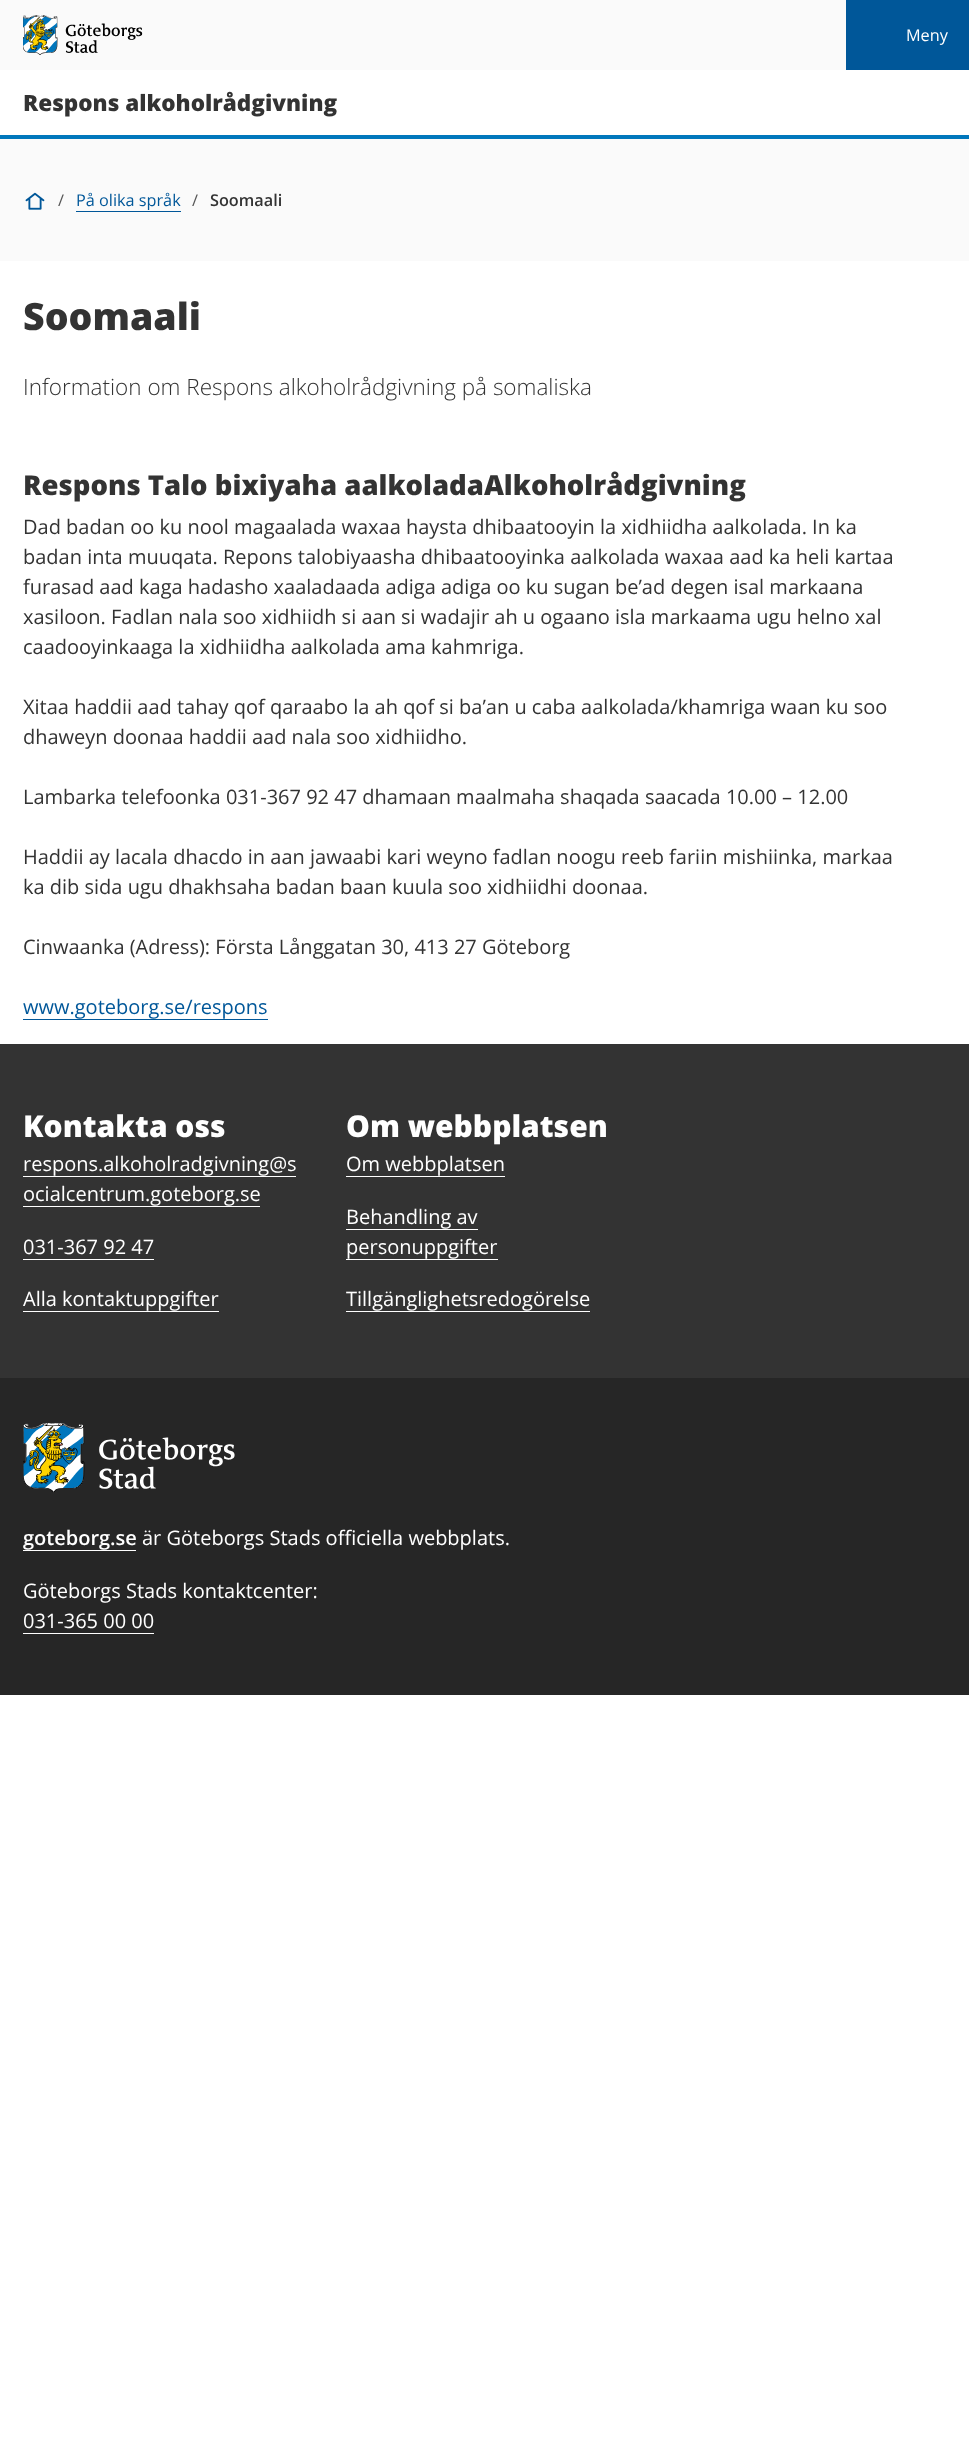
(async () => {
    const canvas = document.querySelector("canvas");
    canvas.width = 969;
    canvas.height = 2442;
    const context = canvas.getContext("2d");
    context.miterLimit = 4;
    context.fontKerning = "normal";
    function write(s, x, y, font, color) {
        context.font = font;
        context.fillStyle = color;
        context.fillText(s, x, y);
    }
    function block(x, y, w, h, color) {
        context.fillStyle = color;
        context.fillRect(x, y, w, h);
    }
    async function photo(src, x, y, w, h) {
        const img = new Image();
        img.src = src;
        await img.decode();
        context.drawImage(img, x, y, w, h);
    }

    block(0, 0, 969, 2442, "rgb(255, 255, 255)");
    block(0, 135, 969, 4, "rgb(0, 119, 188)");
    block(846, 0, 123, 70, "rgb(0, 87, 153)");
    write("Meny", 906, 41, "16.25px Open Sans", "rgb(255, 255, 255)");
    block(0, 0, 846, 70, "rgb(250, 250, 250)");
    await photo("media/1.png", 23, 15, 120, 40);
    write("Respons alkoholrådgivning", 23, 111, "800 22.5px Open Sans", "rgb(51, 51, 51)");
    block(0, 139, 969, 122, "rgb(250, 250, 250)");
    await photo("media/2.png", 25, 192, 20, 18);
    write("/", 58, 206, "16.25px Open Sans", "rgb(85, 85, 85)");
    write("På olika språk", 76, 206, "16.25px Open Sans", "rgb(0, 87, 153)");
    block(76, 211, 105, 1, "rgb(0, 87, 153)");
    write("/", 192, 206, "16.25px Open Sans", "rgb(85, 85, 85)");
    write("Soomaali", 210, 206, "600 16.25px Open Sans", "rgb(51, 51, 51)");
    write("Soomaali", 23, 330, "800 37.5px Open Sans", "rgb(51, 51, 51)");
    write("Information om Respons alkoholrådgivning på somaliska", 23, 395, "300 22.5px Open Sans", "rgb(51, 51, 51)");
    write("Respons Talo bixiyaha aalkoladaAlkoholrådgivning", 23, 495, "800 27.5px Open Sans", "rgb(51, 51, 51)");
    write("Dad badan oo ku nool magaalada waxaa haysta dhibaatooyin la xidhiidha aalkolada. In ka", 23, 534, "20px Open Sans", "rgb(51, 51, 51)");
    write("badan inta muuqata. Repons talobiyaasha dhibaatooyinka aalkolada waxaa aad ka heli kartaa", 23, 564, "20px Open Sans", "rgb(51, 51, 51)");
    write("furasad aad kaga hadasho xaaladaada adiga adiga oo ku sugan be’ad degen isal markaana", 23, 594, "20px Open Sans", "rgb(51, 51, 51)");
    write("xasiloon. Fadlan nala soo xidhiidh si aan si wadajir ah u ogaano isla markaama ugu helno xal", 23, 624, "20px Open Sans", "rgb(51, 51, 51)");
    write("caadooyinkaaga la xidhiidha aalkolada ama kahmriga.", 23, 654, "20px Open Sans", "rgb(51, 51, 51)");
    write("Xitaa haddii aad tahay qof qaraabo la ah qof si ba’an u caba aalkolada/khamriga waan ku soo", 23, 714, "20px Open Sans", "rgb(51, 51, 51)");
    write("dhaweyn doonaa haddii aad nala soo xidhiidho.", 23, 744, "20px Open Sans", "rgb(51, 51, 51)");
    write("Lambarka telefoonka 031-367 92 47 dhamaan maalmaha shaqada saacada 10.00 – 12.00", 23, 804, "20px Open Sans", "rgb(51, 51, 51)");
    write("Haddii ay lacala dhacdo in aan jawaabi kari weyno fadlan noogu reeb fariin mishiinka, markaa", 23, 864, "20px Open Sans", "rgb(51, 51, 51)");
    write("ka dib sida ugu dhakhsaha badan baan kuula soo xidhiidhi doonaa.", 23, 894, "20px Open Sans", "rgb(51, 51, 51)");
    write("Cinwaanka (Adress): Första Långgatan 30, 413 27 Göteborg", 23, 954, "20px Open Sans", "rgb(51, 51, 51)");
    write("www.goteborg.se/respons", 23, 1014, "20px Open Sans", "rgb(0, 87, 153)");
    block(23, 1019, 245, 1, "rgb(0, 87, 153)");
    block(0, 1044, 969, 334, "rgb(51, 51, 51)");
    write("Kontakta oss", 23, 1137, "800 30px Open Sans", "rgb(255, 255, 255)");
    write("respons.alkoholradgivning@s", 23, 1171, "20px Open Sans", "rgb(255, 255, 255)");
    block(23, 1176, 273, 1, "rgb(255, 255, 255)");
    write("ocialcentrum.goteborg.se", 23, 1201, "20px Open Sans", "rgb(255, 255, 255)");
    block(23, 1206, 237, 1, "rgb(255, 255, 255)");
    write("031-367 92 47", 23, 1254, "20px Open Sans", "rgb(255, 255, 255)");
    block(23, 1259, 131, 1, "rgb(255, 255, 255)");
    write("Alla kontaktuppgifter", 23, 1306, "20px Open Sans", "rgb(255, 255, 255)");
    block(23, 1311, 196, 1, "rgb(255, 255, 255)");
    write("Om webbplatsen", 346, 1137, "800 30px Open Sans", "rgb(255, 255, 255)");
    write("Om webbplatsen", 346, 1171, "20px Open Sans", "rgb(255, 255, 255)");
    block(346, 1176, 159, 1, "rgb(255, 255, 255)");
    write("Behandling av", 346, 1224, "20px Open Sans", "rgb(255, 255, 255)");
    block(346, 1229, 132, 1, "rgb(255, 255, 255)");
    write("personuppgifter", 346, 1254, "20px Open Sans", "rgb(255, 255, 255)");
    block(346, 1259, 152, 1, "rgb(255, 255, 255)");
    write("Tillgänglighetsredogörelse", 346, 1306, "20px Open Sans", "rgb(255, 255, 255)");
    block(346, 1311, 244, 1, "rgb(255, 255, 255)");
    block(0, 1378, 969, 317, "rgb(38, 38, 38)");
    await photo("media/3.png", 23, 1423, 212, 70);
    write("goteborg.se", 23, 1545, "600 20px Open Sans", "rgb(255, 255, 255)");
    block(23, 1550, 113, 1, "rgb(255, 255, 255)");
    write("är Göteborgs Stads officiella webbplats.", 142, 1545, "20px Open Sans", "rgb(255, 255, 255)");
    write("Göteborgs Stads kontaktcenter:", 23, 1598, "20px Open Sans", "rgb(255, 255, 255)");
    write("031-365 00 00", 23, 1628, "20px Open Sans", "rgb(255, 255, 255)");
    block(23, 1633, 131, 1, "rgb(255, 255, 255)");
})();
